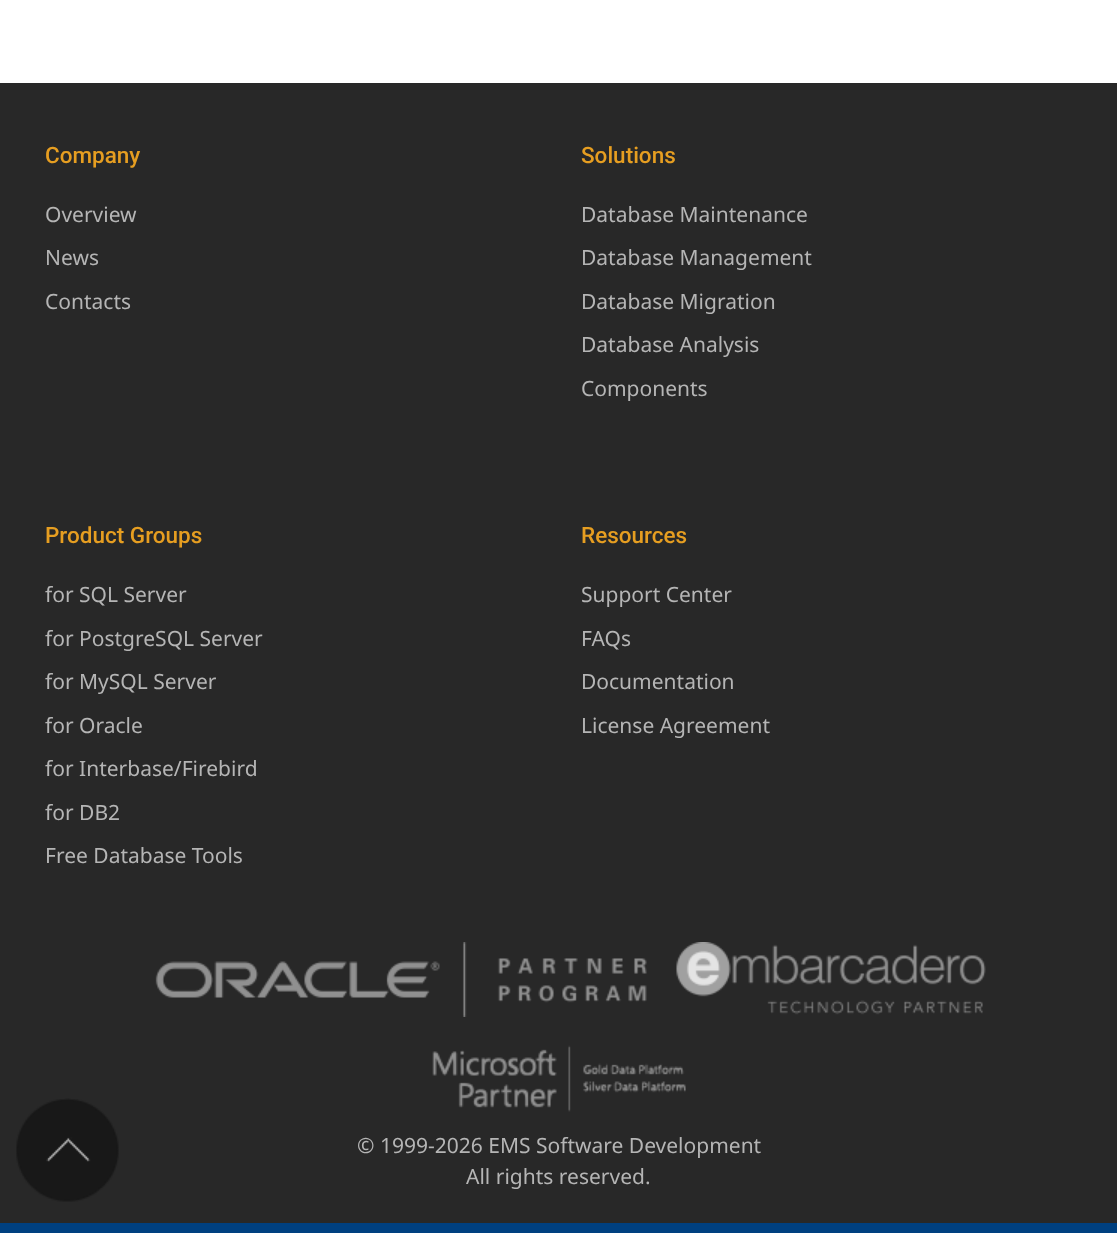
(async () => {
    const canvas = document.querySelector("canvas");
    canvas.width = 1117;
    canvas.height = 1233;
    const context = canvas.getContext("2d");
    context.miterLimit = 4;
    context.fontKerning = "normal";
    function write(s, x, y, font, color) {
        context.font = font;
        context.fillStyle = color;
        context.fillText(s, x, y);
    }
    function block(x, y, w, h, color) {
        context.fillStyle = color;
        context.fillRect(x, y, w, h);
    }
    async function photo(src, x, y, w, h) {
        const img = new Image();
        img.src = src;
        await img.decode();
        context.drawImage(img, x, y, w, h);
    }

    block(0, 0, 1117, 1233, "rgb(255, 255, 255)");
    block(0, 83, 1117, 1140, "rgb(40, 40, 40)");
    write("Company", 45, 163, "500 22.5px Roboto", "rgb(230, 158, 33)");
    write("Overview", 45, 222, "21px Noto Sans", "rgb(181, 181, 181)");
    write("News", 45, 265, "21px Noto Sans", "rgb(181, 181, 181)");
    write("Contacts", 45, 309, "21px Noto Sans", "rgb(181, 181, 181)");
    write("Solutions", 581, 163, "500 22.5px Roboto", "rgb(230, 158, 33)");
    write("Database Maintenance", 581, 222, "21px Noto Sans", "rgb(181, 181, 181)");
    write("Database Management", 581, 265, "21px Noto Sans", "rgb(181, 181, 181)");
    write("Database Migration", 581, 309, "21px Noto Sans", "rgb(181, 181, 181)");
    write("Database Analysis", 581, 352, "21px Noto Sans", "rgb(181, 181, 181)");
    write("Components", 581, 396, "21px Noto Sans", "rgb(181, 181, 181)");
    write("Product Groups", 45, 543, "500 22.5px Roboto", "rgb(230, 158, 33)");
    write("for SQL Server", 45, 602, "21px Noto Sans", "rgb(181, 181, 181)");
    write("for PostgreSQL Server", 45, 646, "21px Noto Sans", "rgb(181, 181, 181)");
    write("for MySQL Server", 45, 689, "21px Noto Sans", "rgb(181, 181, 181)");
    write("for Oracle", 45, 733, "21px Noto Sans", "rgb(181, 181, 181)");
    write("for Interbase/Firebird", 45, 776, "21px Noto Sans", "rgb(181, 181, 181)");
    write("for DB2", 45, 820, "21px Noto Sans", "rgb(181, 181, 181)");
    write("Free Database Tools", 45, 863, "21px Noto Sans", "rgb(181, 181, 181)");
    write("Resources", 581, 543, "500 22.5px Roboto", "rgb(230, 158, 33)");
    write("Support Center", 581, 602, "21px Noto Sans", "rgb(181, 181, 181)");
    write("FAQs", 581, 646, "21px Noto Sans", "rgb(181, 181, 181)");
    write("Documentation", 581, 689, "21px Noto Sans", "rgb(181, 181, 181)");
    write("License Agreement", 581, 733, "21px Noto Sans", "rgb(181, 181, 181)");
    await photo("media/1.png", 155, 942, 492, 75);
    await photo("media/2.png", 676, 942, 310, 73);
    await photo("media/3.png", 432, 1045, 254, 67);
    write("© 1999-2026 EMS Software Development", 357, 1153, "21px Noto Sans", "rgb(181, 181, 181)");
    write("All rights reserved.", 466, 1184, "21px Noto Sans", "rgb(181, 181, 181)");
    await photo("media/4.png", 16, 1098, 103, 104);
    block(0, 1223, 1117, 10, "rgb(0, 64, 128)");
})();
